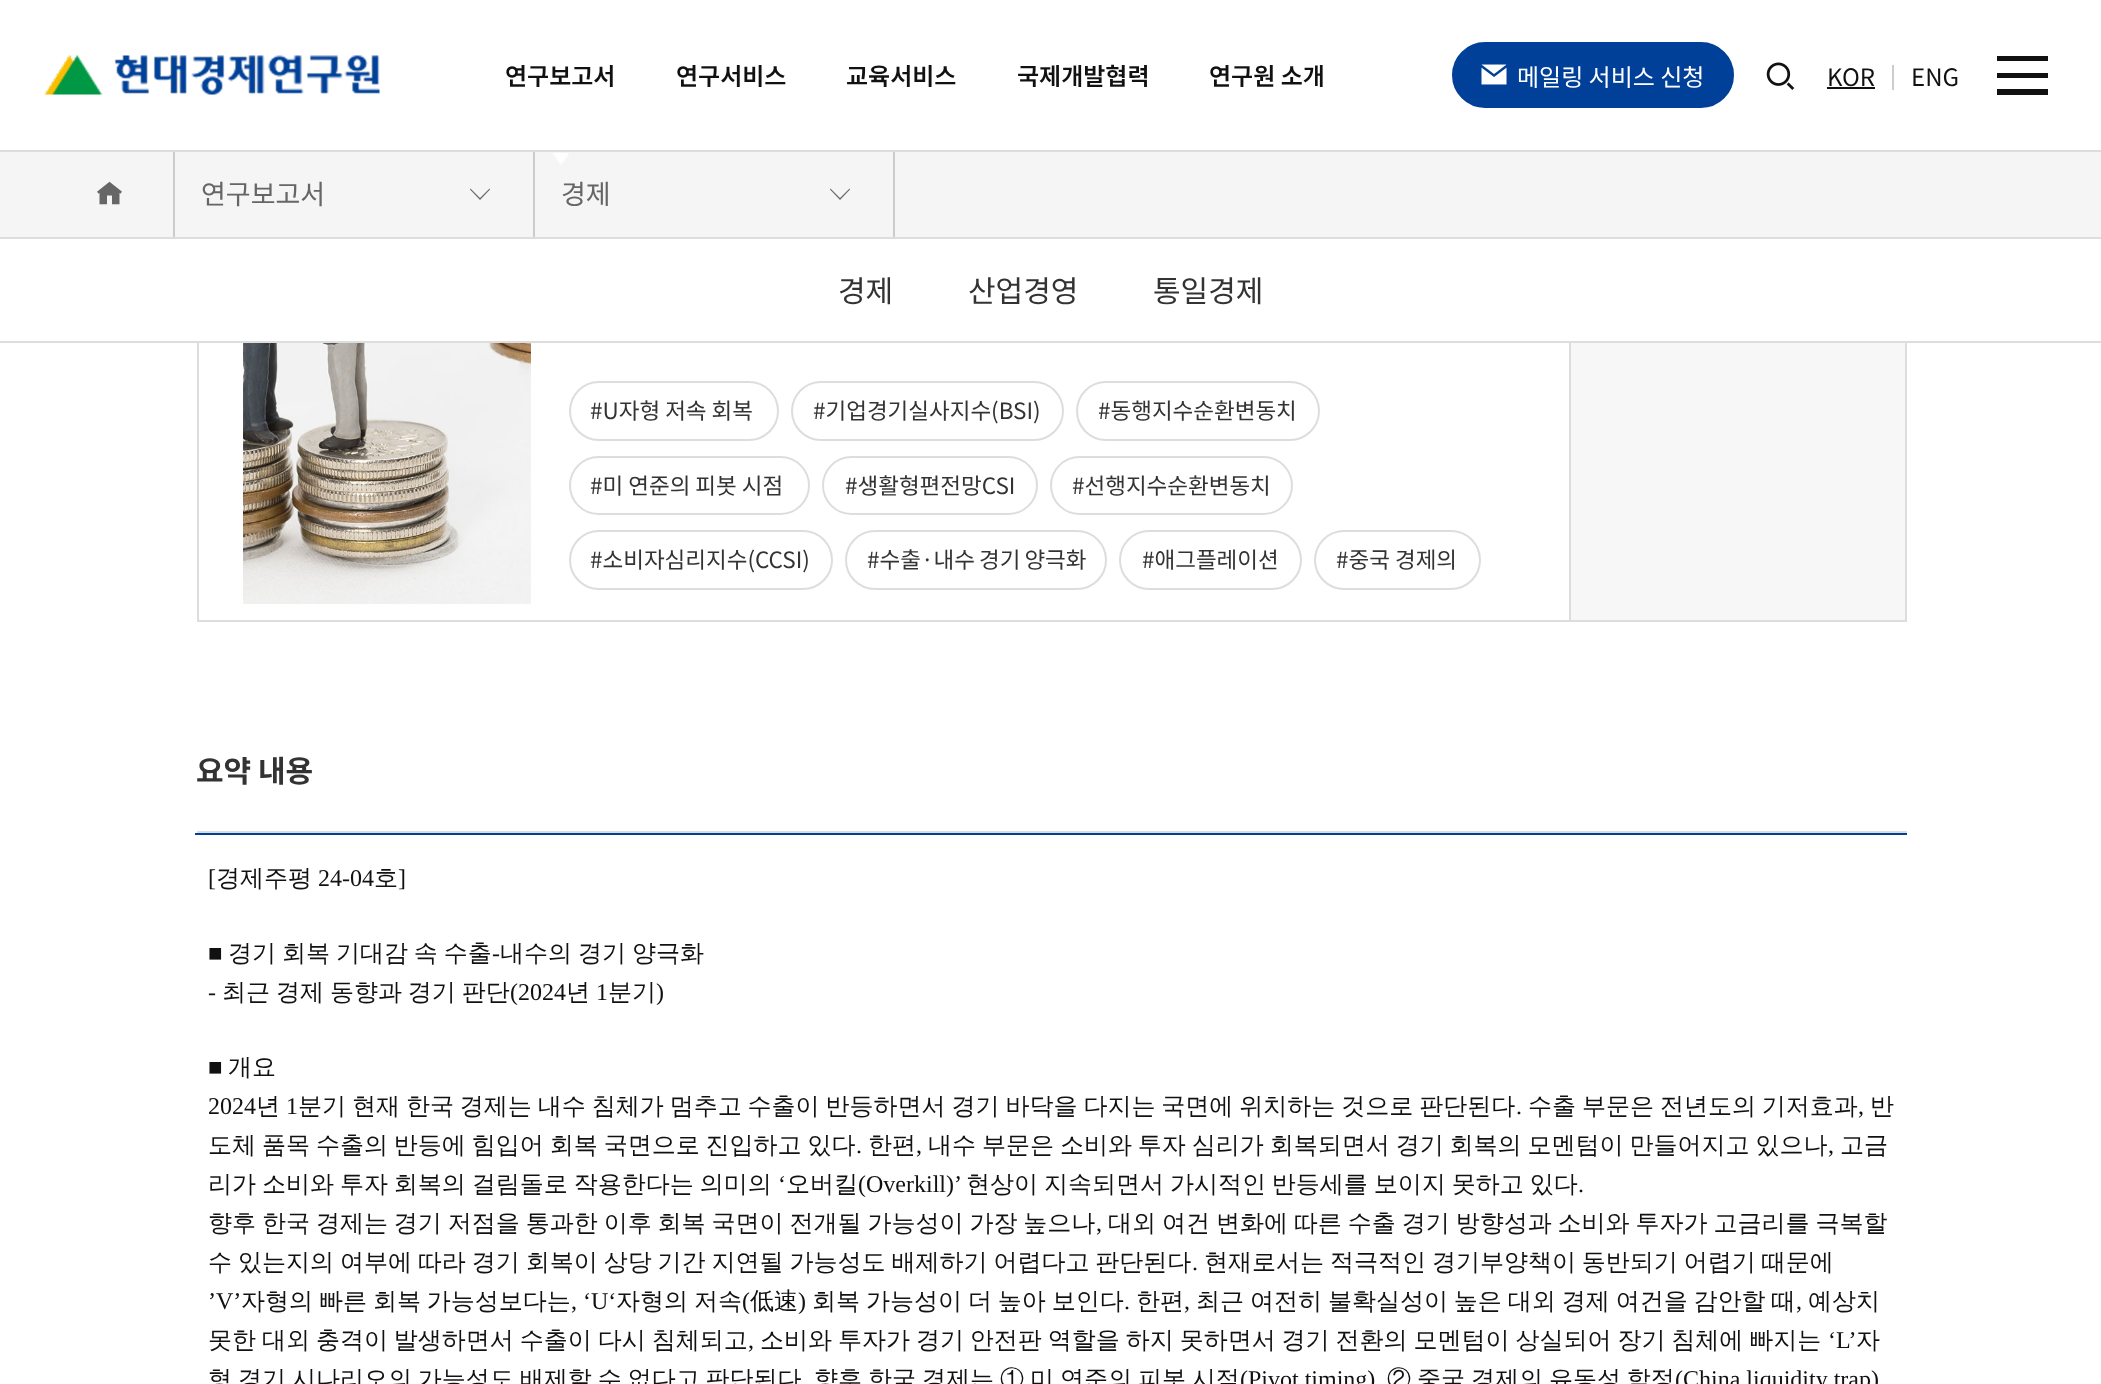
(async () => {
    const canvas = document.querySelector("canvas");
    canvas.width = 2101;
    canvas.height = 1384;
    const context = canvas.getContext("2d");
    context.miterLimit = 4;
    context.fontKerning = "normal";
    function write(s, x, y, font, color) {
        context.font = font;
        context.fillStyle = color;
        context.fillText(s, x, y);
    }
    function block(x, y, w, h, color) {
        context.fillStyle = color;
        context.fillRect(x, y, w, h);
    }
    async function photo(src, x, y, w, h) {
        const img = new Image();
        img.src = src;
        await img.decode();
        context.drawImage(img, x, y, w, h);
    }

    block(0, 0, 2101, 1384, "rgb(255, 255, 255)");
    block(0, 152, 2101, 85, "rgb(245, 245, 245)");
    block(173, 150, 2, 87, "rgb(204, 204, 204)");
    block(533, 150, 2, 87, "rgb(204, 204, 204)");
    block(893, 150, 2, 87, "rgb(204, 204, 204)");
    block(0, 150, 2101, 2, "rgb(221, 221, 221)");
    await photo("media/1.png", 45, 55, 335, 40);
    write("연구보고서", 505, 85, "600 24px Noto Sans KR", "rgb(17, 17, 17)");
    await photo("media/2.png", 553, 153, 16, 12);
    write("연구서비스", 676, 85, "600 24px Noto Sans KR", "rgb(17, 17, 17)");
    write("교육서비스", 846, 85, "600 24px Noto Sans KR", "rgb(17, 17, 17)");
    write("국제개발협력", 1017, 85, "600 24px Noto Sans KR", "rgb(17, 17, 17)");
    write("연구원 소개", 1209, 85, "600 24px Noto Sans KR", "rgb(17, 17, 17)");
    context.fillStyle = "rgb(1, 64, 153)";
    context.beginPath();
    context.roundRect(1453, 43, 280, 64, 32);
    context.fill();
    context.strokeStyle = "rgb(1, 64, 153)";
    context.lineWidth = 2;
    context.stroke();
    await photo("media/3.png", 1481, 64, 26, 21);
    write("메일링 서비스 신청", 1517, 86, "24px Noto Sans KR", "rgb(255, 255, 255)");
    await photo("media/4.png", 1766, 62, 29, 28);
    write("KOR", 1827, 86, "24px Noto Sans KR", "rgb(17, 17, 17)");
    block(1827, 87, 48, 2, "rgb(17, 17, 17)");
    block(1892, 65, 2, 25, "rgb(204, 204, 204)");
    write("ENG", 1911, 86, "24px Noto Sans KR", "rgb(17, 17, 17)");
    context.beginPath();
    context.moveTo(1997, 95);
    context.lineTo(2048, 95);
    context.lineTo(2048, 89);
    context.lineTo(1997, 89);
    context.closePath();
    context.moveTo(1997, 78);
    context.lineTo(2048, 78);
    context.lineTo(2048, 73);
    context.lineTo(1997, 73);
    context.closePath();
    context.moveTo(1997, 56);
    context.lineTo(1997, 61);
    context.lineTo(2048, 61);
    context.lineTo(2048, 56);
    context.closePath();
    context.fill();
    block(0, 237, 2101, 2, "rgb(221, 221, 221)");
    await photo("media/5.png", 97, 181, 25, 24);
    write("연구보고서", 201, 204, "27px Noto Sans KR", "rgb(102, 102, 102)");
    context.beginPath();
    context.moveTo(489.5, 188.5);
    context.lineTo(490, 189.5);
    context.lineTo(480, 200);
    context.lineTo(470, 189.5);
    context.lineTo(470.5, 188.5);
    context.lineTo(480, 198);
    context.closePath();
    context.fill();
    write("경제", 561, 204, "27px Noto Sans KR", "rgb(102, 102, 102)");
    context.beginPath();
    context.moveTo(849.5, 188.5);
    context.lineTo(850, 189.5);
    context.lineTo(840, 200);
    context.lineTo(830, 189.5);
    context.lineTo(830.5, 188.5);
    context.lineTo(840, 198);
    context.closePath();
    context.fill();
    block(0, 341, 2101, 2, "rgb(221, 221, 221)");
    write("경제", 838, 302, "30px Noto Sans KR", "rgb(51, 51, 51)");
    write("산업경영", 968, 302, "30px Noto Sans KR", "rgb(51, 51, 51)");
    write("통일경제", 1153, 302, "30px Noto Sans KR", "rgb(51, 51, 51)");
    block(1905, 343, 2, 278, "rgb(221, 221, 221)");
    block(197, 620, 1710, 2, "rgb(221, 221, 221)");
    block(197, 343, 2, 278, "rgb(221, 221, 221)");
    await photo("media/6.png", 243, 343, 288, 261);
    context.beginPath();
    context.roundRect(570, 382, 208, 58, 29);
    context.strokeStyle = "rgb(221, 221, 221)";
    context.stroke();
    write("#U자형 저속 회복", 590, 419, "22.5px Noto Sans KR", "rgb(51, 51, 51)");
    context.beginPath();
    context.roundRect(792, 382, 271, 58, 29);
    context.stroke();
    write("#기업경기실사지수(BSI)", 813, 419, "22.5px Noto Sans KR", "rgb(51, 51, 51)");
    context.beginPath();
    context.roundRect(1077, 382, 242, 58, 29);
    context.stroke();
    write("#동행지수순환변동치", 1098, 419, "22.5px Noto Sans KR", "rgb(51, 51, 51)");
    context.beginPath();
    context.roundRect(570, 457, 239, 57, 28.5);
    context.stroke();
    write("#미 연준의 피봇 시점", 590, 494, "22.5px Noto Sans KR", "rgb(51, 51, 51)");
    context.beginPath();
    context.roundRect(823, 457, 214, 57, 28.5);
    context.stroke();
    write("#생활형편전망CSI", 845, 494, "22.5px Noto Sans KR", "rgb(51, 51, 51)");
    context.beginPath();
    context.roundRect(1051, 457, 241, 57, 28.5);
    context.stroke();
    write("#선행지수순환변동치", 1072, 494, "22.5px Noto Sans KR", "rgb(51, 51, 51)");
    context.beginPath();
    context.roundRect(570, 531, 262, 58, 29);
    context.stroke();
    write("#소비자심리지수(CCSI)", 590, 568, "22.5px Noto Sans KR", "rgb(51, 51, 51)");
    context.beginPath();
    context.roundRect(846, 531, 260, 58, 29);
    context.stroke();
    context.wordSpacing = "-1px";
    write("#수출·내수 경기 양극화", 867, 568, "22.5px Noto Sans KR", "rgb(51, 51, 51)");
    context.beginPath();
    context.roundRect(1120, 531, 181, 58, 29);
    context.stroke();
    context.wordSpacing = "0px";
    write("#애그플레이션", 1142, 568, "22.5px Noto Sans KR", "rgb(51, 51, 51)");
    context.beginPath();
    context.roundRect(1315, 531, 165, 58, 29);
    context.stroke();
    write("#중국 경제의", 1336, 568, "22.5px Noto Sans KR", "rgb(51, 51, 51)");
    block(1571, 343, 334, 277, "rgb(247, 247, 247)");
    block(1569, 343, 2, 277, "rgb(221, 221, 221)");
    block(197, 831, 1710, 2, "rgb(221, 221, 221)");
    write("요약 내용", 196, 782, "bold 30px Noto Sans KR", "rgb(51, 51, 51)");
    block(195, 833, 1712, 2, "rgb(1, 64, 153)");
    write("[", 208, 886, "24px Liberation Serif", "rgb(17, 17, 17)");
    write("경제주평", 216, 886, "500 24px WenQuanYi Zen Hei", "rgb(17, 17, 17)");
    write("24-04", 318, 886, "24px Liberation Serif", "rgb(17, 17, 17)");
    write("호", 374, 886, "500 24px WenQuanYi Zen Hei", "rgb(17, 17, 17)");
    write("]", 398, 886, "24px Liberation Serif", "rgb(17, 17, 17)");
    write("■", 208, 961, "24px Liberation Serif", "rgb(17, 17, 17)");
    context.wordSpacing = "-1.25px";
    write("경기 회복 기대감 속 수출", 228, 961, "500 24px WenQuanYi Zen Hei", "rgb(17, 17, 17)");
    context.wordSpacing = "0px";
    write("-", 492, 961, "24px Liberation Serif", "rgb(17, 17, 17)");
    context.wordSpacing = "-1.25px";
    write("내수의 경기 양극화", 500, 961, "500 24px WenQuanYi Zen Hei", "rgb(17, 17, 17)");
    context.wordSpacing = "0px";
    write("-", 208, 1000, "24px Liberation Serif", "rgb(17, 17, 17)");
    context.wordSpacing = "-1.25px";
    write("최근 경제 동향과 경기 판단", 222, 1000, "500 24px WenQuanYi Zen Hei", "rgb(17, 17, 17)");
    context.wordSpacing = "0px";
    write("(2024", 510, 1000, "24px Liberation Serif", "rgb(17, 17, 17)");
    write("년", 566, 1000, "500 24px WenQuanYi Zen Hei", "rgb(17, 17, 17)");
    write("1", 596, 1000, "24px Liberation Serif", "rgb(17, 17, 17)");
    write("분기", 608, 1000, "500 24px WenQuanYi Zen Hei", "rgb(17, 17, 17)");
    write(")", 656, 1000, "24px Liberation Serif", "rgb(17, 17, 17)");
    write("■", 208, 1075, "24px Liberation Serif", "rgb(17, 17, 17)");
    write("개요", 228, 1075, "500 24px WenQuanYi Zen Hei", "rgb(17, 17, 17)");
    write("2024", 208, 1114, "24px Liberation Serif", "rgb(17, 17, 17)");
    write("년", 256, 1114, "500 24px WenQuanYi Zen Hei", "rgb(17, 17, 17)");
    write("1", 286, 1114, "24px Liberation Serif", "rgb(17, 17, 17)");
    context.wordSpacing = "-1.25px";
    write("분기 현재 한국 경제는 내수 침체가 멈추고 수출이 반등하면서 경기 바닥을 다지는 국면에 위치하는 것으로 판단된다", 298, 1114, "500 24px WenQuanYi Zen Hei", "rgb(17, 17, 17)");
    context.wordSpacing = "0px";
    write(".", 1516, 1114, "24px Liberation Serif", "rgb(17, 17, 17)");
    context.wordSpacing = "-1.25px";
    write("수출 부문은 전년도의 기저효과", 1528, 1114, "500 24px WenQuanYi Zen Hei", "rgb(17, 17, 17)");
    context.wordSpacing = "0px";
    write(",", 1858, 1114, "24px Liberation Serif", "rgb(17, 17, 17)");
    write("반", 1870, 1114, "500 24px WenQuanYi Zen Hei", "rgb(17, 17, 17)");
    context.wordSpacing = "-1.25px";
    write("도체 품목 수출의 반등에 힘입어 회복 국면으로 진입하고 있다", 208, 1153, "500 24px WenQuanYi Zen Hei", "rgb(17, 17, 17)");
    context.wordSpacing = "0px";
    write(".", 856, 1153, "24px Liberation Serif", "rgb(17, 17, 17)");
    write("한편", 868, 1153, "500 24px WenQuanYi Zen Hei", "rgb(17, 17, 17)");
    write(",", 916, 1153, "24px Liberation Serif", "rgb(17, 17, 17)");
    context.wordSpacing = "-1.25px";
    write("내수 부문은 소비와 투자 심리가 회복되면서 경기 회복의 모멘텀이 만들어지고 있으나", 928, 1153, "500 24px WenQuanYi Zen Hei", "rgb(17, 17, 17)");
    context.wordSpacing = "0px";
    write(",", 1828, 1153, "24px Liberation Serif", "rgb(17, 17, 17)");
    write("고금", 1840, 1153, "500 24px WenQuanYi Zen Hei", "rgb(17, 17, 17)");
    context.wordSpacing = "-1.25px";
    write("리가 소비와 투자 회복의 걸림돌로 작용한다는 의미의", 208, 1192, "500 24px WenQuanYi Zen Hei", "rgb(17, 17, 17)");
    context.wordSpacing = "0px";
    write("‘", 778, 1192, "24px Liberation Serif", "rgb(17, 17, 17)");
    write("오버킬", 786, 1192, "500 24px WenQuanYi Zen Hei", "rgb(17, 17, 17)");
    write("(Overkill)’", 858, 1192, "24px Liberation Serif", "rgb(17, 17, 17)");
    context.wordSpacing = "-1.25px";
    write("현상이 지속되면서 가시적인 반등세를 보이지 못하고 있다", 966, 1192, "500 24px WenQuanYi Zen Hei", "rgb(17, 17, 17)");
    context.wordSpacing = "0px";
    write(".", 1578, 1192, "24px Liberation Serif", "rgb(17, 17, 17)");
    context.wordSpacing = "-1.25px";
    write("향후 한국 경제는 경기 저점을 통과한 이후 회복 국면이 전개될 가능성이 가장 높으나", 208, 1231, "500 24px WenQuanYi Zen Hei", "rgb(17, 17, 17)");
    context.wordSpacing = "0px";
    write(",", 1096, 1231, "24px Liberation Serif", "rgb(17, 17, 17)");
    context.wordSpacing = "-1.25px";
    write("대외 여건 변화에 따른 수출 경기 방향성과 소비와 투자가 고금리를 극복할", 1108, 1231, "500 24px WenQuanYi Zen Hei", "rgb(17, 17, 17)");
    write("수 있는지의 여부에 따라 경기 회복이 상당 기간 지연될 가능성도 배제하기 어렵다고 판단된다", 208, 1270, "500 24px WenQuanYi Zen Hei", "rgb(17, 17, 17)");
    context.wordSpacing = "0px";
    write(".", 1192, 1270, "24px Liberation Serif", "rgb(17, 17, 17)");
    context.wordSpacing = "-1.25px";
    write("현재로서는 적극적인 경기부양책이 동반되기 어렵기 때문에", 1204, 1270, "500 24px WenQuanYi Zen Hei", "rgb(17, 17, 17)");
    context.wordSpacing = "0px";
    write("’V’", 208, 1309, "24px Liberation Serif", "rgb(17, 17, 17)");
    context.wordSpacing = "-1.25px";
    write("자형의 빠른 회복 가능성보다는", 241, 1309, "500 24px WenQuanYi Zen Hei", "rgb(17, 17, 17)");
    context.wordSpacing = "0px";
    write(", ‘U‘", 571, 1309, "24px Liberation Serif", "rgb(17, 17, 17)");
    context.wordSpacing = "-1.25px";
    write("자형의 저속", 616, 1309, "500 24px WenQuanYi Zen Hei", "rgb(17, 17, 17)");
    context.wordSpacing = "0px";
    write("(", 742, 1309, "24px Liberation Serif", "rgb(17, 17, 17)");
    write("低速", 750, 1309, "500 24px WenQuanYi Zen Hei", "rgb(17, 17, 17)");
    write(")", 798, 1309, "24px Liberation Serif", "rgb(17, 17, 17)");
    context.wordSpacing = "-1.25px";
    write("회복 가능성이 더 높아 보인다", 812, 1309, "500 24px WenQuanYi Zen Hei", "rgb(17, 17, 17)");
    context.wordSpacing = "0px";
    write(".", 1124, 1309, "24px Liberation Serif", "rgb(17, 17, 17)");
    write("한편", 1136, 1309, "500 24px WenQuanYi Zen Hei", "rgb(17, 17, 17)");
    write(",", 1184, 1309, "24px Liberation Serif", "rgb(17, 17, 17)");
    context.wordSpacing = "-1.25px";
    write("최근 여전히 불확실성이 높은 대외 경제 여건을 감안할 때", 1196, 1309, "500 24px WenQuanYi Zen Hei", "rgb(17, 17, 17)");
    context.wordSpacing = "0px";
    write(",", 1796, 1309, "24px Liberation Serif", "rgb(17, 17, 17)");
    write("예상치", 1808, 1309, "500 24px WenQuanYi Zen Hei", "rgb(17, 17, 17)");
    context.wordSpacing = "-1.25px";
    write("못한 대외 충격이 발생하면서 수출이 다시 침체되고", 208, 1348, "500 24px WenQuanYi Zen Hei", "rgb(17, 17, 17)");
    context.wordSpacing = "0px";
    write(",", 748, 1348, "24px Liberation Serif", "rgb(17, 17, 17)");
    context.wordSpacing = "-1.25px";
    write("소비와 투자가 경기 안전판 역할을 하지 못하면서 경기 전환의 모멘텀이 상실되어 장기 침체에 빠지는", 760, 1348, "500 24px WenQuanYi Zen Hei", "rgb(17, 17, 17)");
    context.wordSpacing = "0px";
    write("‘L’", 1828, 1348, "24px Liberation Serif", "rgb(17, 17, 17)");
    write("자", 1856, 1348, "500 24px WenQuanYi Zen Hei", "rgb(17, 17, 17)");
    context.wordSpacing = "-1.25px";
    write("형 경기 시나리오의 가능성도 배제할 수 없다고 판단된다", 208, 1387, "500 24px WenQuanYi Zen Hei", "rgb(17, 17, 17)");
    write("향후 한국 경제는", 814, 1387, "500 24px WenQuanYi Zen Hei", "rgb(17, 17, 17)");
    context.wordSpacing = "0px";
    write("①", 1000, 1387, "500 24px WenQuanYi Zen Hei", "rgb(17, 17, 17)");
    context.wordSpacing = "-1.25px";
    write("미 연준의 피봇 시점", 1030, 1387, "500 24px WenQuanYi Zen Hei", "rgb(17, 17, 17)");
    context.wordSpacing = "0px";
    write("(Pivot timing)", 1240, 1387, "24px Liberation Serif", "rgb(17, 17, 17)");
    write("②", 1387, 1387, "500 24px WenQuanYi Zen Hei", "rgb(17, 17, 17)");
    context.wordSpacing = "-1.25px";
    write("중국 경제의 유동성 함정", 1417, 1387, "500 24px WenQuanYi Zen Hei", "rgb(17, 17, 17)");
    context.wordSpacing = "0px";
    write("(China liquidity trap)", 1675, 1387, "24px Liberation Serif", "rgb(17, 17, 17)");
})();
